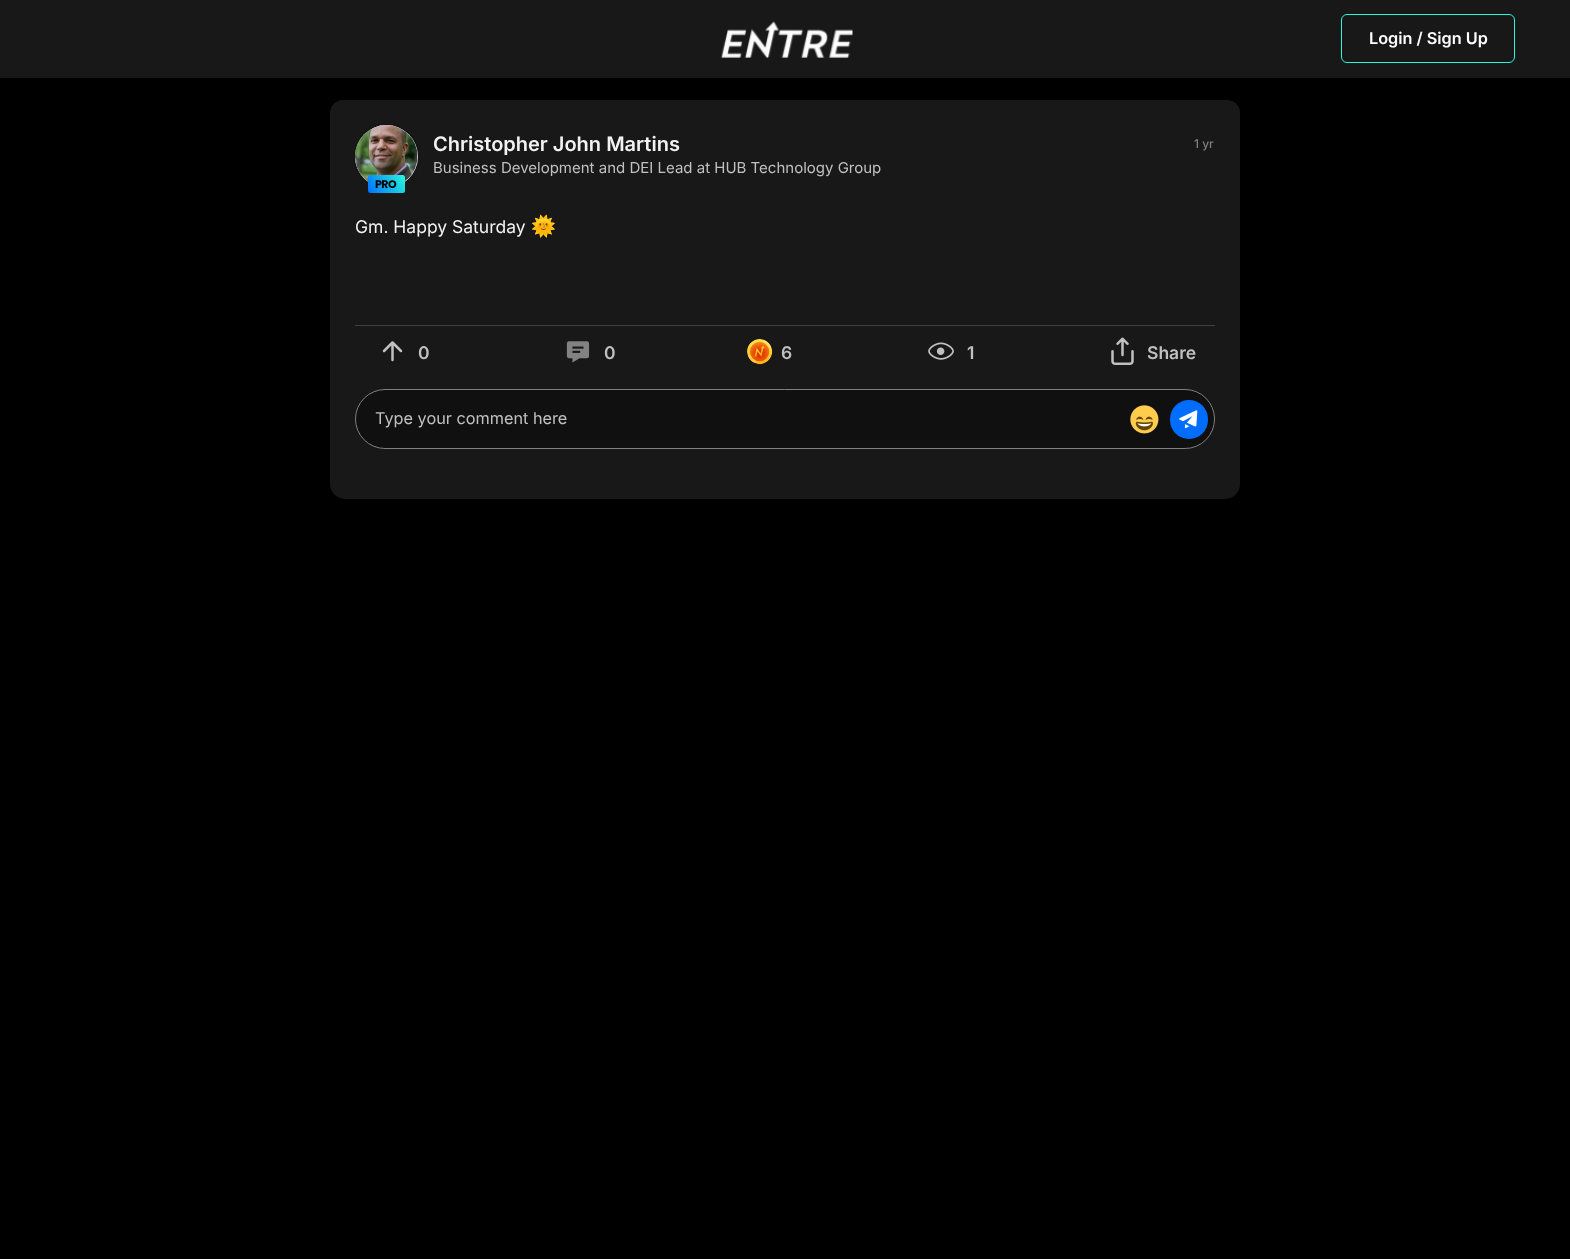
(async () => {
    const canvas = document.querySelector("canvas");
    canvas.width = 1570;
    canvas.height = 1259;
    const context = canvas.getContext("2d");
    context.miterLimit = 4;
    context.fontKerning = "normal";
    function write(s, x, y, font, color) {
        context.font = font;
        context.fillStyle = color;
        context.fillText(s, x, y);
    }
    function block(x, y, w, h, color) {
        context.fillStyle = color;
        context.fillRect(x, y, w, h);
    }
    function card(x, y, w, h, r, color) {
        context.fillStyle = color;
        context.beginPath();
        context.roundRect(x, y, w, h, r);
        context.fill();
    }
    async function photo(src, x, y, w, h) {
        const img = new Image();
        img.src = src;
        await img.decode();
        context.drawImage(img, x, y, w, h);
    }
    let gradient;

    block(0, 0, 1570, 1259, "rgb(0, 0, 0)");
    block(0, 0, 1570, 78, "rgb(24, 24, 24)");
    await photo("media/1.png", 721, 21, 132, 37);
    context.beginPath();
    context.roundRect(1341.5, 14.5, 173, 48, 5.5);
    context.strokeStyle = "rgb(40, 249, 218)";
    context.stroke();
    write("Login / Sign Up", 1369, 44, "600 16.25px Inter", "rgb(255, 255, 255)");
    card(330, 100, 910, 399, 15, "rgb(24, 24, 24)");
    card(330, 100, 910, 374, 13, "rgb(24, 24, 24)");
    write("Christopher John Martins", 433, 151, "600 20px Inter", "rgb(242, 242, 242)");
    write("Business Development and DEI Lead at HUB Technology Group", 433, 173, "15px Inter", "rgb(192, 192, 192)");
    context.fillStyle = "rgba(0, 0, 0, 0.5)";
    context.filter = "blur(1px)";
    context.beginPath();
    context.roundRect(355, 125, 63, 63, 31.5);
    context.fill();
    context.filter = "none";
    context.fillStyle = "rgb(242, 242, 242)";
    context.beginPath();
    context.arc(386.5, 156.5, 31.5, 0, Math.PI * 2);
    context.fill();
    await photo("media/2.png", 355, 125, 63, 57);
    gradient = context.createLinearGradient(369, 195, 403, 172);
    gradient.addColorStop(0, "rgb(0, 109, 255)");
    gradient.addColorStop(1, "rgb(40, 249, 218)");
    context.fillStyle = gradient;
    context.beginPath();
    context.roundRect(368, 175, 37, 18, 2.5);
    context.fill();
    context.letterSpacing = "-0.5px";
    write("PRO", 375, 188, "bold 11px Poppins", "rgb(0, 0, 0)");
    context.letterSpacing = "0px";
    write("1 yr", 1194, 148, "500 12px Inter", "rgb(128, 128, 128)");
    block(355, 325, 860, 1, "rgb(64, 64, 64)");
    write("Gm. Happy Saturday", 355, 233, "17.5px Inter", "rgb(242, 242, 242)");
    write("🌞", 531, 233, "20px Noto Color Emoji", "rgb(242, 242, 242)");
    context.beginPath();
    context.moveTo(392.5, 360);
    context.lineTo(392.5, 342.5);
    context.moveTo(384, 351);
    context.lineTo(392.5, 342.5);
    context.lineTo(401, 351);
    context.strokeStyle = "rgb(192, 192, 192)";
    context.lineWidth = 2.5;
    context.lineCap = "round";
    context.lineJoin = "round";
    context.stroke();
    write("0", 418, 359, "600 17.5px Inter", "rgb(192, 192, 192)");
    await photo("media/3.png", 566, 341, 24, 22);
    write("0", 604, 359, "600 17.5px Inter", "rgb(192, 192, 192)");
    await photo("media/4.png", 747, 339, 26, 26);
    write("6", 781, 359, "600 17.5px Inter", "rgb(192, 192, 192)");
    await photo("media/5.png", 928, 342, 26, 18);
    write("1", 967, 359, "600 17.5px Inter", "rgb(192, 192, 192)");
    await photo("media/6.png", 1111, 337, 23, 28);
    write("Share", 1147, 359, "600 17.5px Inter", "rgb(192, 192, 192)");
    context.fillStyle = "rgb(16, 16, 16)";
    context.beginPath();
    context.roundRect(355.5, 389.5, 859, 59, 29.5);
    context.fill();
    context.strokeStyle = "rgb(128, 128, 128)";
    context.lineWidth = 1;
    context.lineJoin = "miter";
    context.stroke();
    write("Type your comment here", 375, 424, "16.25px Inter", "rgb(192, 192, 192)");
    await photo("media/7.png", 1130, 405, 29, 29);
    card(1170, 400, 38, 39, 19, "rgb(0, 109, 255)");
    await photo("media/8.png", 1179, 410, 19, 19);
})();
